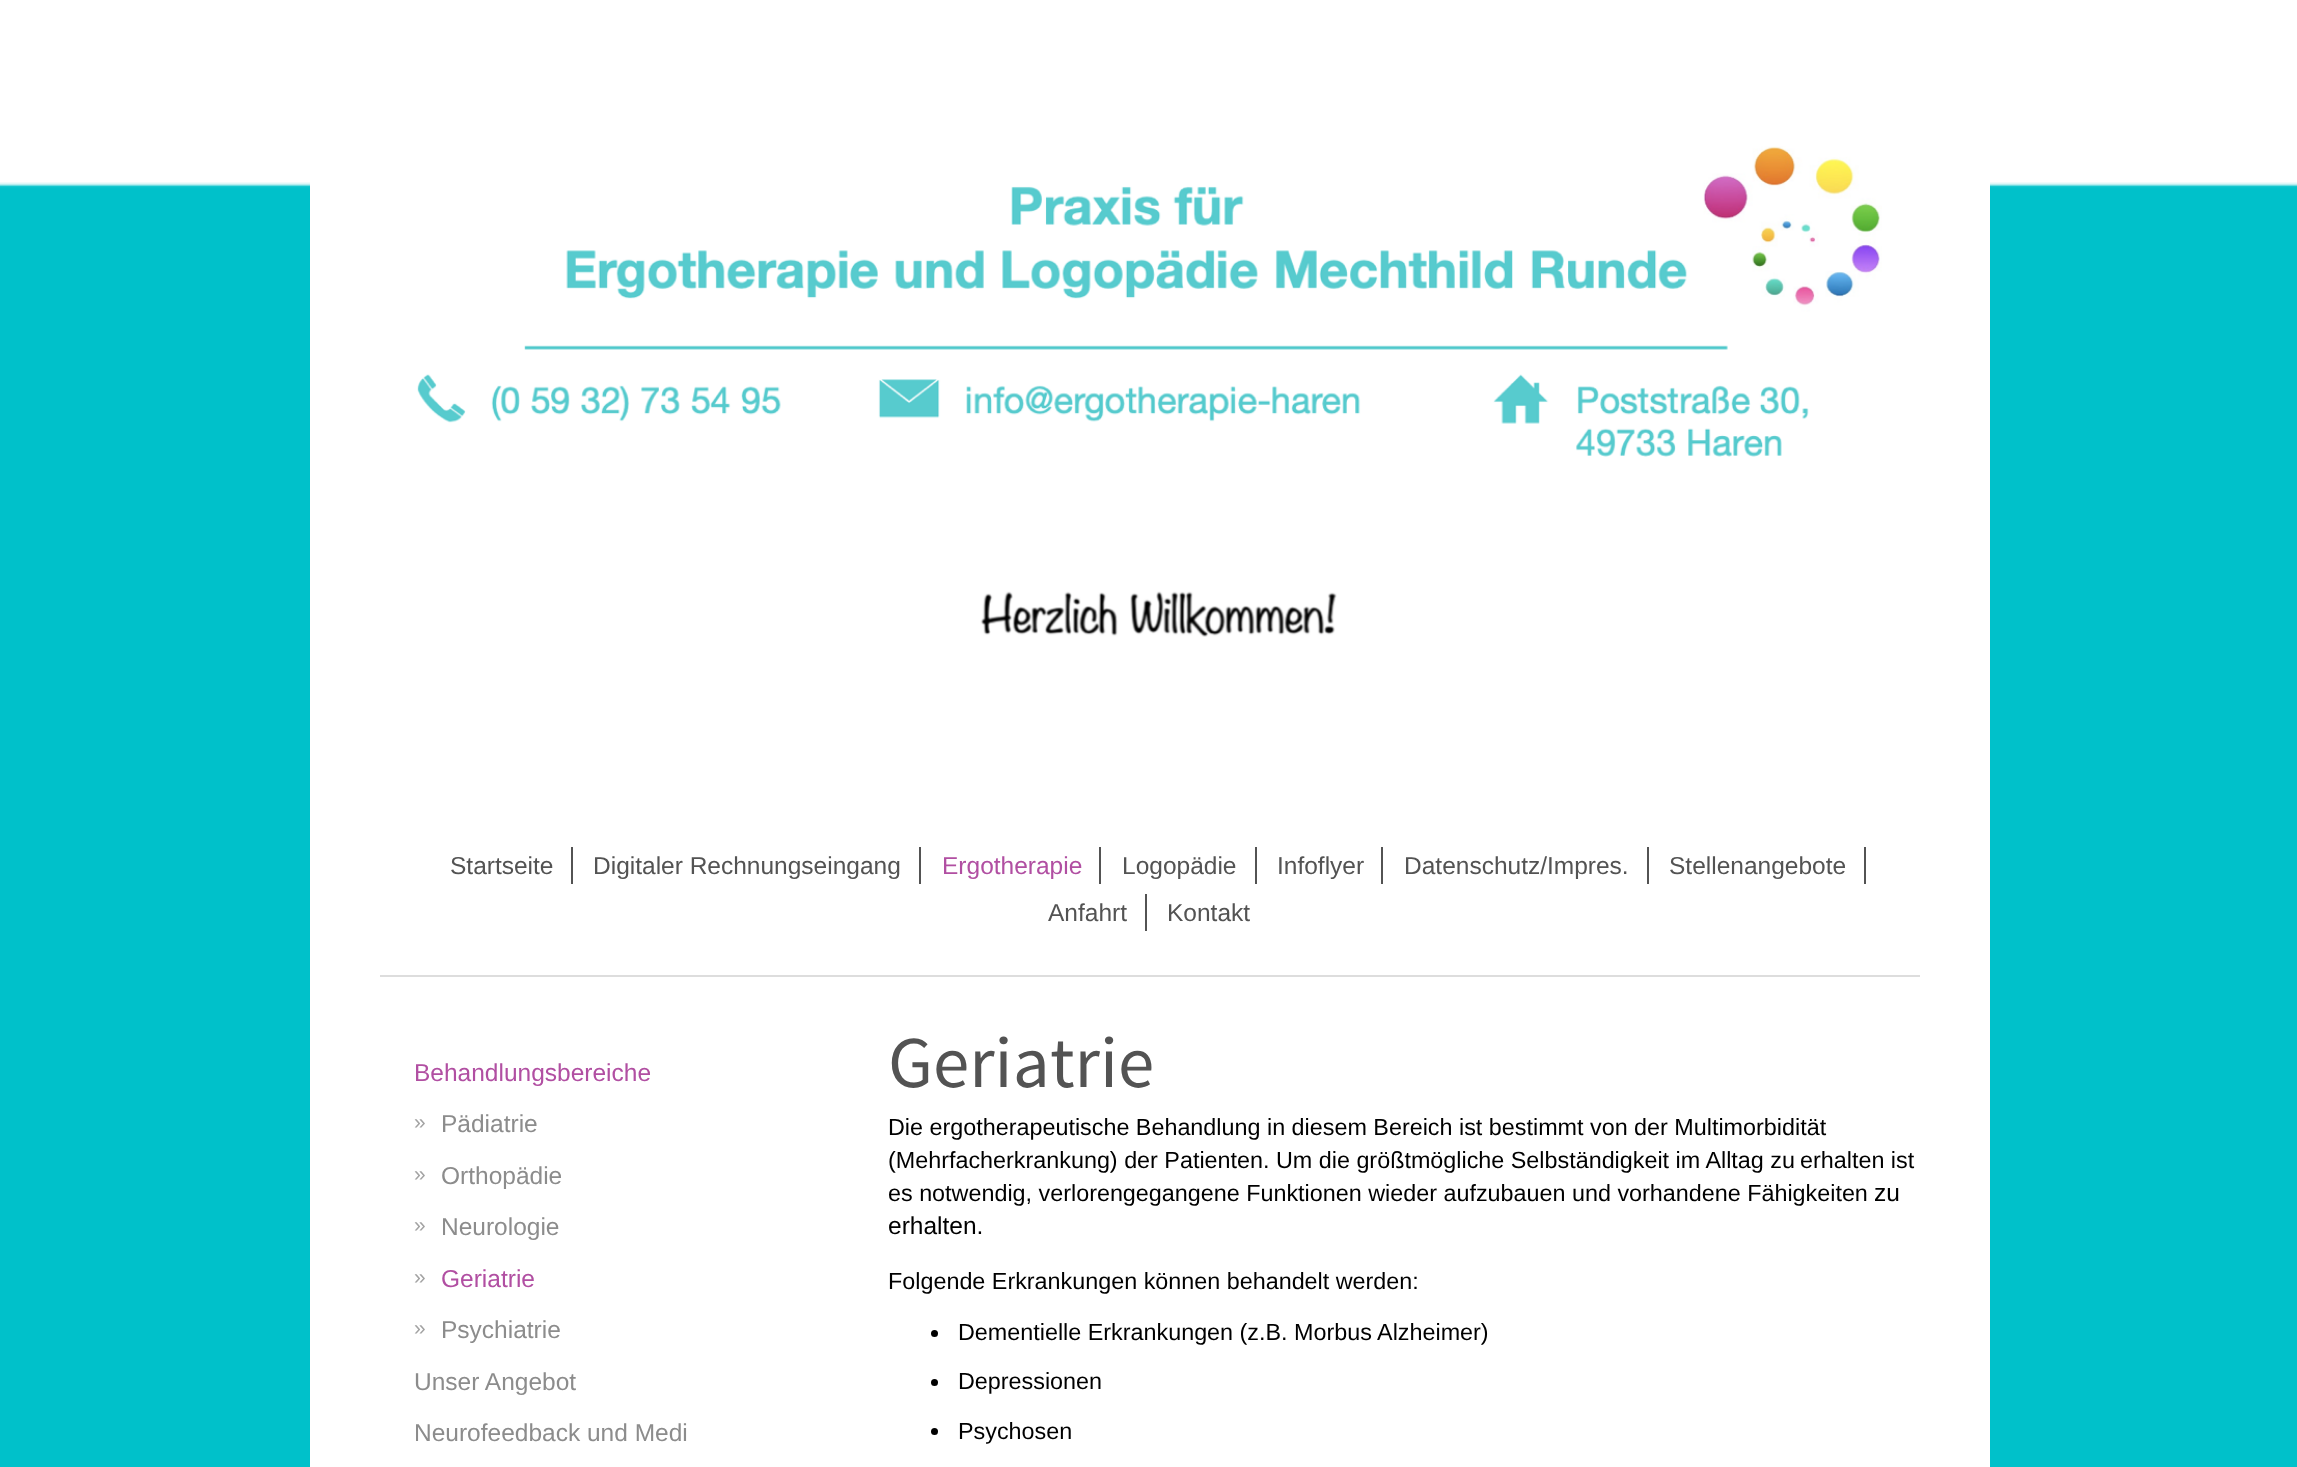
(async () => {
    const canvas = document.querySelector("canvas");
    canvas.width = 2297;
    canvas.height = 1467;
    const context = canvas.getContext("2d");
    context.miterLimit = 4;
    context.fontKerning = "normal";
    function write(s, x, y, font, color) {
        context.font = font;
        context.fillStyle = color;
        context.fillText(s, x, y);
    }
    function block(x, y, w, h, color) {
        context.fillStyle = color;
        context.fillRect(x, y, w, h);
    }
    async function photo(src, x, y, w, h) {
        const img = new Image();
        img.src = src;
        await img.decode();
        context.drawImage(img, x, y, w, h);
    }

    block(0, 0, 2297, 1467, "rgb(255, 255, 255)");
    await photo("media/1.png", 0, 182, 2297, 1285);
    block(310, 182, 1680, 1285, "rgb(255, 255, 255)");
    await photo("media/2.png", 417, 146, 1465, 491);
    block(380, 975, 1540, 2, "rgb(221, 221, 221)");
    block(571, 847, 2, 37, "rgb(83, 83, 83)");
    write("Startseite", 450, 874, "24.5px Liberation Sans", "rgb(83, 83, 83)");
    block(919, 847, 2, 37, "rgb(83, 83, 83)");
    write("Digitaler Rechnungseingang", 593, 874, "24.5px Liberation Sans", "rgb(83, 83, 83)");
    block(1099, 847, 2, 37, "rgb(83, 83, 83)");
    write("Ergotherapie", 942, 874, "24.5px Liberation Sans", "rgb(177, 79, 162)");
    block(1255, 847, 2, 37, "rgb(83, 83, 83)");
    write("Logopädie", 1122, 874, "24.5px Liberation Sans", "rgb(83, 83, 83)");
    block(1381, 847, 2, 37, "rgb(83, 83, 83)");
    write("Infoflyer", 1277, 874, "24.5px Liberation Sans", "rgb(83, 83, 83)");
    block(1647, 847, 2, 37, "rgb(83, 83, 83)");
    write("Datenschutz/Impres.", 1404, 874, "24.5px Liberation Sans", "rgb(83, 83, 83)");
    block(1864, 847, 2, 37, "rgb(83, 83, 83)");
    write("Stellenangebote", 1669, 874, "24.5px Liberation Sans", "rgb(83, 83, 83)");
    block(1145, 894, 2, 37, "rgb(83, 83, 83)");
    write("Anfahrt", 1048, 921, "24.5px Liberation Sans", "rgb(83, 83, 83)");
    write("Kontakt", 1167, 921, "24.5px Liberation Sans", "rgb(83, 83, 83)");
    write("Behandlungsbereiche", 414, 1081, "24.5px Liberation Sans", "rgb(177, 79, 162)");
    write("»", 414, 1129, "21px Liberation Sans", "rgb(163, 163, 163)");
    write("Pädiatrie", 441, 1132, "24.5px Liberation Sans", "rgb(140, 140, 140)");
    write("»", 414, 1181, "21px Liberation Sans", "rgb(163, 163, 163)");
    write("Orthopädie", 441, 1184, "24.5px Liberation Sans", "rgb(140, 140, 140)");
    write("»", 414, 1232, "21px Liberation Sans", "rgb(163, 163, 163)");
    write("Neurologie", 441, 1235, "24.5px Liberation Sans", "rgb(140, 140, 140)");
    write("»", 414, 1284, "21px Liberation Sans", "rgb(163, 163, 163)");
    write("Geriatrie", 441, 1287, "24.5px Liberation Sans", "rgb(177, 79, 162)");
    write("»", 414, 1335, "21px Liberation Sans", "rgb(163, 163, 163)");
    write("Psychiatrie", 441, 1338, "24.5px Liberation Sans", "rgb(140, 140, 140)");
    write("Unser Angebot", 414, 1390, "24.5px Liberation Sans", "rgb(140, 140, 140)");
    write("Neurofeedback und Medi", 414, 1441, "24.5px Liberation Sans", "rgb(140, 140, 140)");
    write("Geriatrie", 888, 1087, "73px Source Sans Pro", "rgb(83, 83, 83)");
    write("Die ergotherapeutische Behandlung in diesem Bereich ist bestimmt von der Multimorbidität", 888, 1135, "23.35px Liberation Sans", "rgb(0, 0, 0)");
    write("(Mehrfacherkrankung) der Patienten. Um die größtmögliche Selbständigkeit im Alltag zu", 888, 1168, "23.35px Liberation Sans", "rgb(0, 0, 0)");
    write("erhalten ist", 1800, 1168, "23.35px Liberation Sans", "rgb(0, 0, 0)");
    write("es notwendig, verlorengegangene Funktionen wieder aufzubauen und vorhandene Fähigkeiten", 888, 1201, "23.35px Liberation Sans", "rgb(0, 0, 0)");
    write("zu", 1874, 1201, "24.5px Liberation Sans", "rgb(0, 0, 0)");
    write("erhalten.", 888, 1234, "24.5px Liberation Sans", "rgb(0, 0, 0)");
    write("Folgende Erkrankungen können behandelt werden:", 888, 1289, "23.35px Liberation Sans", "rgb(0, 0, 0)");
    context.beginPath();
    context.arc(934.5, 1333.5, 3.5, 0, Math.PI * 2);
    context.fill();
    write("Dementielle Erkrankungen (z.B. Morbus Alzheimer)", 958, 1340, "23.35px Liberation Sans", "rgb(0, 0, 0)");
    context.beginPath();
    context.arc(934.5, 1382.5, 3.5, 0, Math.PI * 2);
    context.fill();
    write("Depressionen", 958, 1389, "23.35px Liberation Sans", "rgb(0, 0, 0)");
    context.beginPath();
    context.arc(934.5, 1431.5, 3.5, 0, Math.PI * 2);
    context.fill();
    write("Psychosen", 958, 1439, "23.35px Liberation Sans", "rgb(0, 0, 0)");
})();
